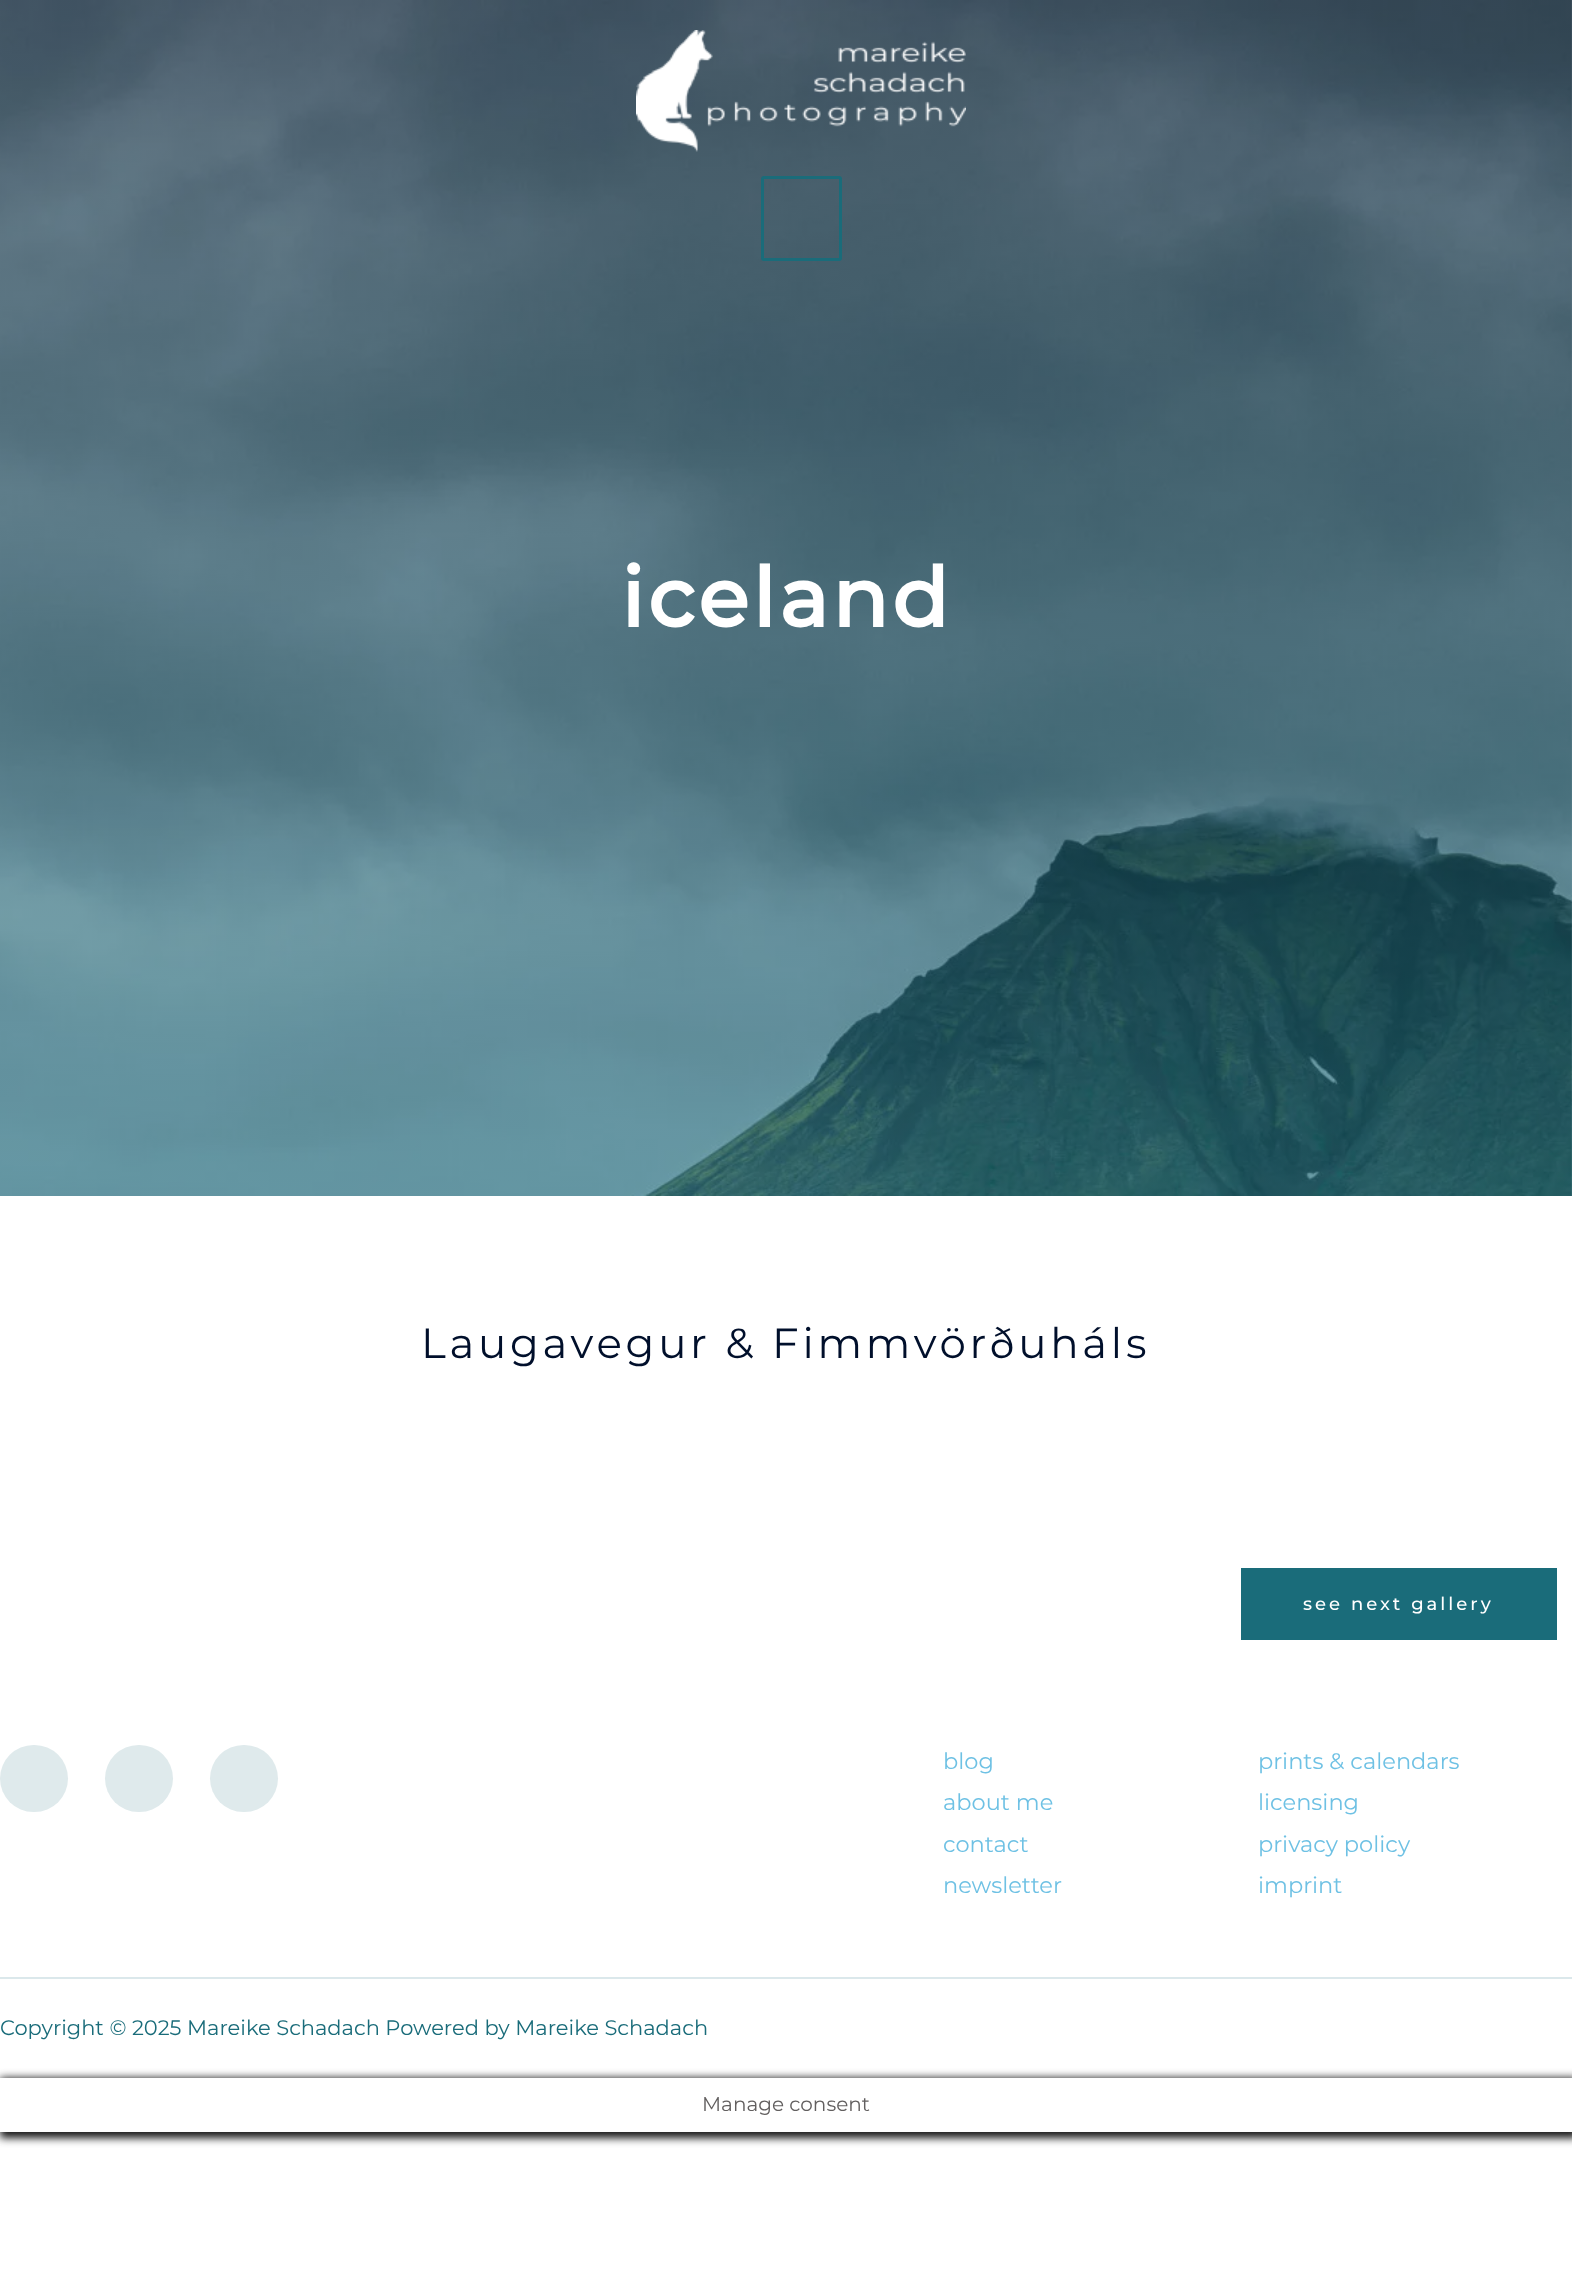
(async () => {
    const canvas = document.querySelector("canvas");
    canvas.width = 1572;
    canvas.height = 2293;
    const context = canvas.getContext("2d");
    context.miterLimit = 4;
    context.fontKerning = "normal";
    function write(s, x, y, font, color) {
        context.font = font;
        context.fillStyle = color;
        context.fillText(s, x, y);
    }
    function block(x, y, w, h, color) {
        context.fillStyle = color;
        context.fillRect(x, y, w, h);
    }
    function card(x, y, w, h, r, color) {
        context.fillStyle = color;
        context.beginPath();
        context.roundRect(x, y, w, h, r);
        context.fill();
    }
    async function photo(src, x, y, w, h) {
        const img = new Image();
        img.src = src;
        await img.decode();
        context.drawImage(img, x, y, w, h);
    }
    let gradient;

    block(0, 0, 1572, 2293, "rgb(255, 255, 255)");
    await photo("media/2.png", 0, 0, 1572, 1196);
    gradient = context.createLinearGradient(786, 0, 786, 1196);
    gradient.addColorStop(0, "rgba(21, 50, 67, 0.6)");
    gradient.addColorStop(1, "rgba(26, 108, 122, 0.6)");
    context.fillStyle = gradient;
    context.fillRect(0, 0, 1572, 1196);
    await photo("media/1.png", 636, 30, 330, 122);
    context.beginPath();
    context.roundRect(762.5, 177.5, 78, 82, 1.5);
    context.strokeStyle = "rgb(26, 108, 122)";
    context.lineWidth = 3;
    context.stroke();
    context.letterSpacing = "3.75px";
    write("iceland", 621, 627, "bold 82.5px Montserrat", "rgb(255, 255, 255)");
    write("Laugavegur & Fimmvörðuháls", 421, 1358, "42px Montserrat", "rgb(0, 15, 43)");
    block(1241, 1568, 316, 72, "rgb(26, 108, 122)");
    context.letterSpacing = "3px";
    write("see next gallery", 1303, 1610, "500 18px Montserrat", "rgb(255, 255, 255)");
    card(0, 1745, 68, 67, 33.5, "rgb(223, 234, 236)");
    card(105, 1745, 68, 67, 33.5, "rgb(223, 234, 236)");
    card(210, 1745, 68, 67, 33.5, "rgb(223, 234, 236)");
    context.letterSpacing = "0px";
    write("blog", 943, 1769, "22.5px Montserrat", "rgb(110, 193, 228)");
    write("about me", 943, 1810, "22.5px Montserrat", "rgb(110, 193, 228)");
    write("contact", 943, 1852, "22.5px Montserrat", "rgb(110, 193, 228)");
    write("newsletter", 943, 1893, "22.5px Montserrat", "rgb(110, 193, 228)");
    write("prints & calendars", 1258, 1769, "22.5px Montserrat", "rgb(110, 193, 228)");
    write("licensing", 1258, 1810, "22.5px Montserrat", "rgb(110, 193, 228)");
    write("privacy policy", 1258, 1852, "22.5px Montserrat", "rgb(110, 193, 228)");
    write("imprint", 1258, 1893, "22.5px Montserrat", "rgb(110, 193, 228)");
    block(0, 1977, 1572, 2, "rgb(219, 232, 235)");
    write("Copyright © 2025 Mareike Schadach Powered by Mareike Schadach", 0, 2035, "21px Montserrat", "rgb(26, 108, 122)");
    context.save();
    context.beginPath();
    context.moveTo(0, 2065);
    context.lineTo(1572, 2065);
    context.lineTo(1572, 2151);
    context.lineTo(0, 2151);
    context.closePath();
    context.moveTo(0, 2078);
    context.lineTo(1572, 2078);
    context.lineTo(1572, 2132);
    context.lineTo(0, 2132);
    context.closePath();
    context.clip("evenodd");
    context.fillStyle = "rgb(22, 22, 22)";
    context.filter = "blur(4px)";
    context.beginPath();
    context.rect(0, 2078, 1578, 60);
    context.fill();
    context.filter = "none";
    context.restore();
    write("Manage consent", 702, 2111, "20px Montserrat", "rgb(98, 95, 95)");
})();
